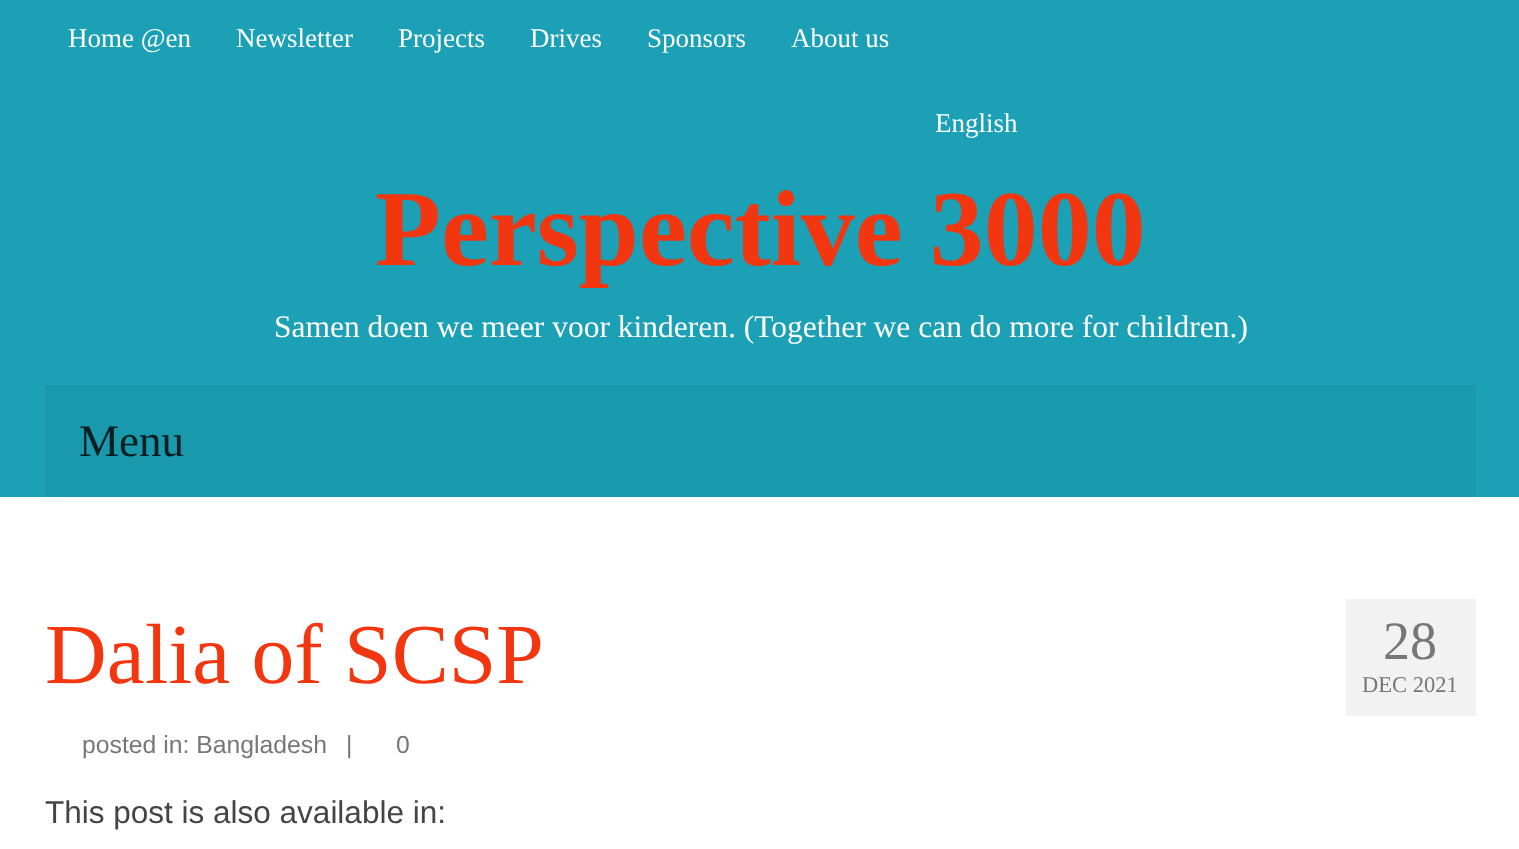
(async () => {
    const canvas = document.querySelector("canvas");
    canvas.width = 1519;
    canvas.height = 849;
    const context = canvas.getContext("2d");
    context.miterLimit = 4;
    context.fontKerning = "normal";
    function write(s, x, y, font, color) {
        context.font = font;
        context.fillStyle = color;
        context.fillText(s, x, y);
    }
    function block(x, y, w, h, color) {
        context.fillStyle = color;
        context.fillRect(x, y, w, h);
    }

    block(0, 0, 1519, 849, "rgb(27, 160, 181)");
    write("Home @en", 68, 47, "27px Liberation Serif", "rgb(255, 255, 255)");
    write("Newsletter", 236, 47, "27px Liberation Serif", "rgb(255, 255, 255)");
    write("Projects", 398, 47, "27px Liberation Serif", "rgb(255, 255, 255)");
    write("Drives", 530, 47, "27px Liberation Serif", "rgb(255, 255, 255)");
    write("Sponsors", 647, 47, "27px Liberation Serif", "rgb(255, 255, 255)");
    write("About us", 791, 47, "27px Liberation Serif", "rgb(255, 255, 255)");
    write("English", 935, 132, "27px Liberation Serif", "rgb(255, 255, 255)");
    write("Perspective 3000", 375, 265, "bold 108px Liberation Serif", "rgb(242, 54, 16)");
    write("Samen doen we meer voor kinderen. (Together we can do more for children.)", 274, 337, "31.5px Liberation Serif", "rgb(255, 255, 255)");
    block(45, 385, 1431, 112, "rgb(26, 152, 172)");
    write("Menu", 79, 456, "45px Liberation Serif", "rgb(5, 30, 34)");
    block(0, 497, 1519, 352, "rgb(255, 255, 255)");
    write("Dalia of SCSP", 45, 683, "85.5px Liberation Serif", "rgb(242, 54, 16)");
    write("posted in: Bangladesh", 82, 753, "24.75px Liberation Sans", "rgb(119, 119, 119)");
    write("|", 346, 753, "24.75px Liberation Sans", "rgb(119, 119, 119)");
    write("0", 396, 753, "24.75px Liberation Sans", "rgb(119, 119, 119)");
    block(1346, 599, 130, 117, "rgb(242, 242, 242)");
    write("28", 1383, 659, "54px Liberation Serif", "rgb(119, 119, 119)");
    write("DEC 2021", 1362, 692, "22.5px Liberation Serif", "rgb(119, 119, 119)");
    write("This post is also available in:", 45, 823, "31.5px Liberation Sans", "rgb(68, 68, 68)");
})();
